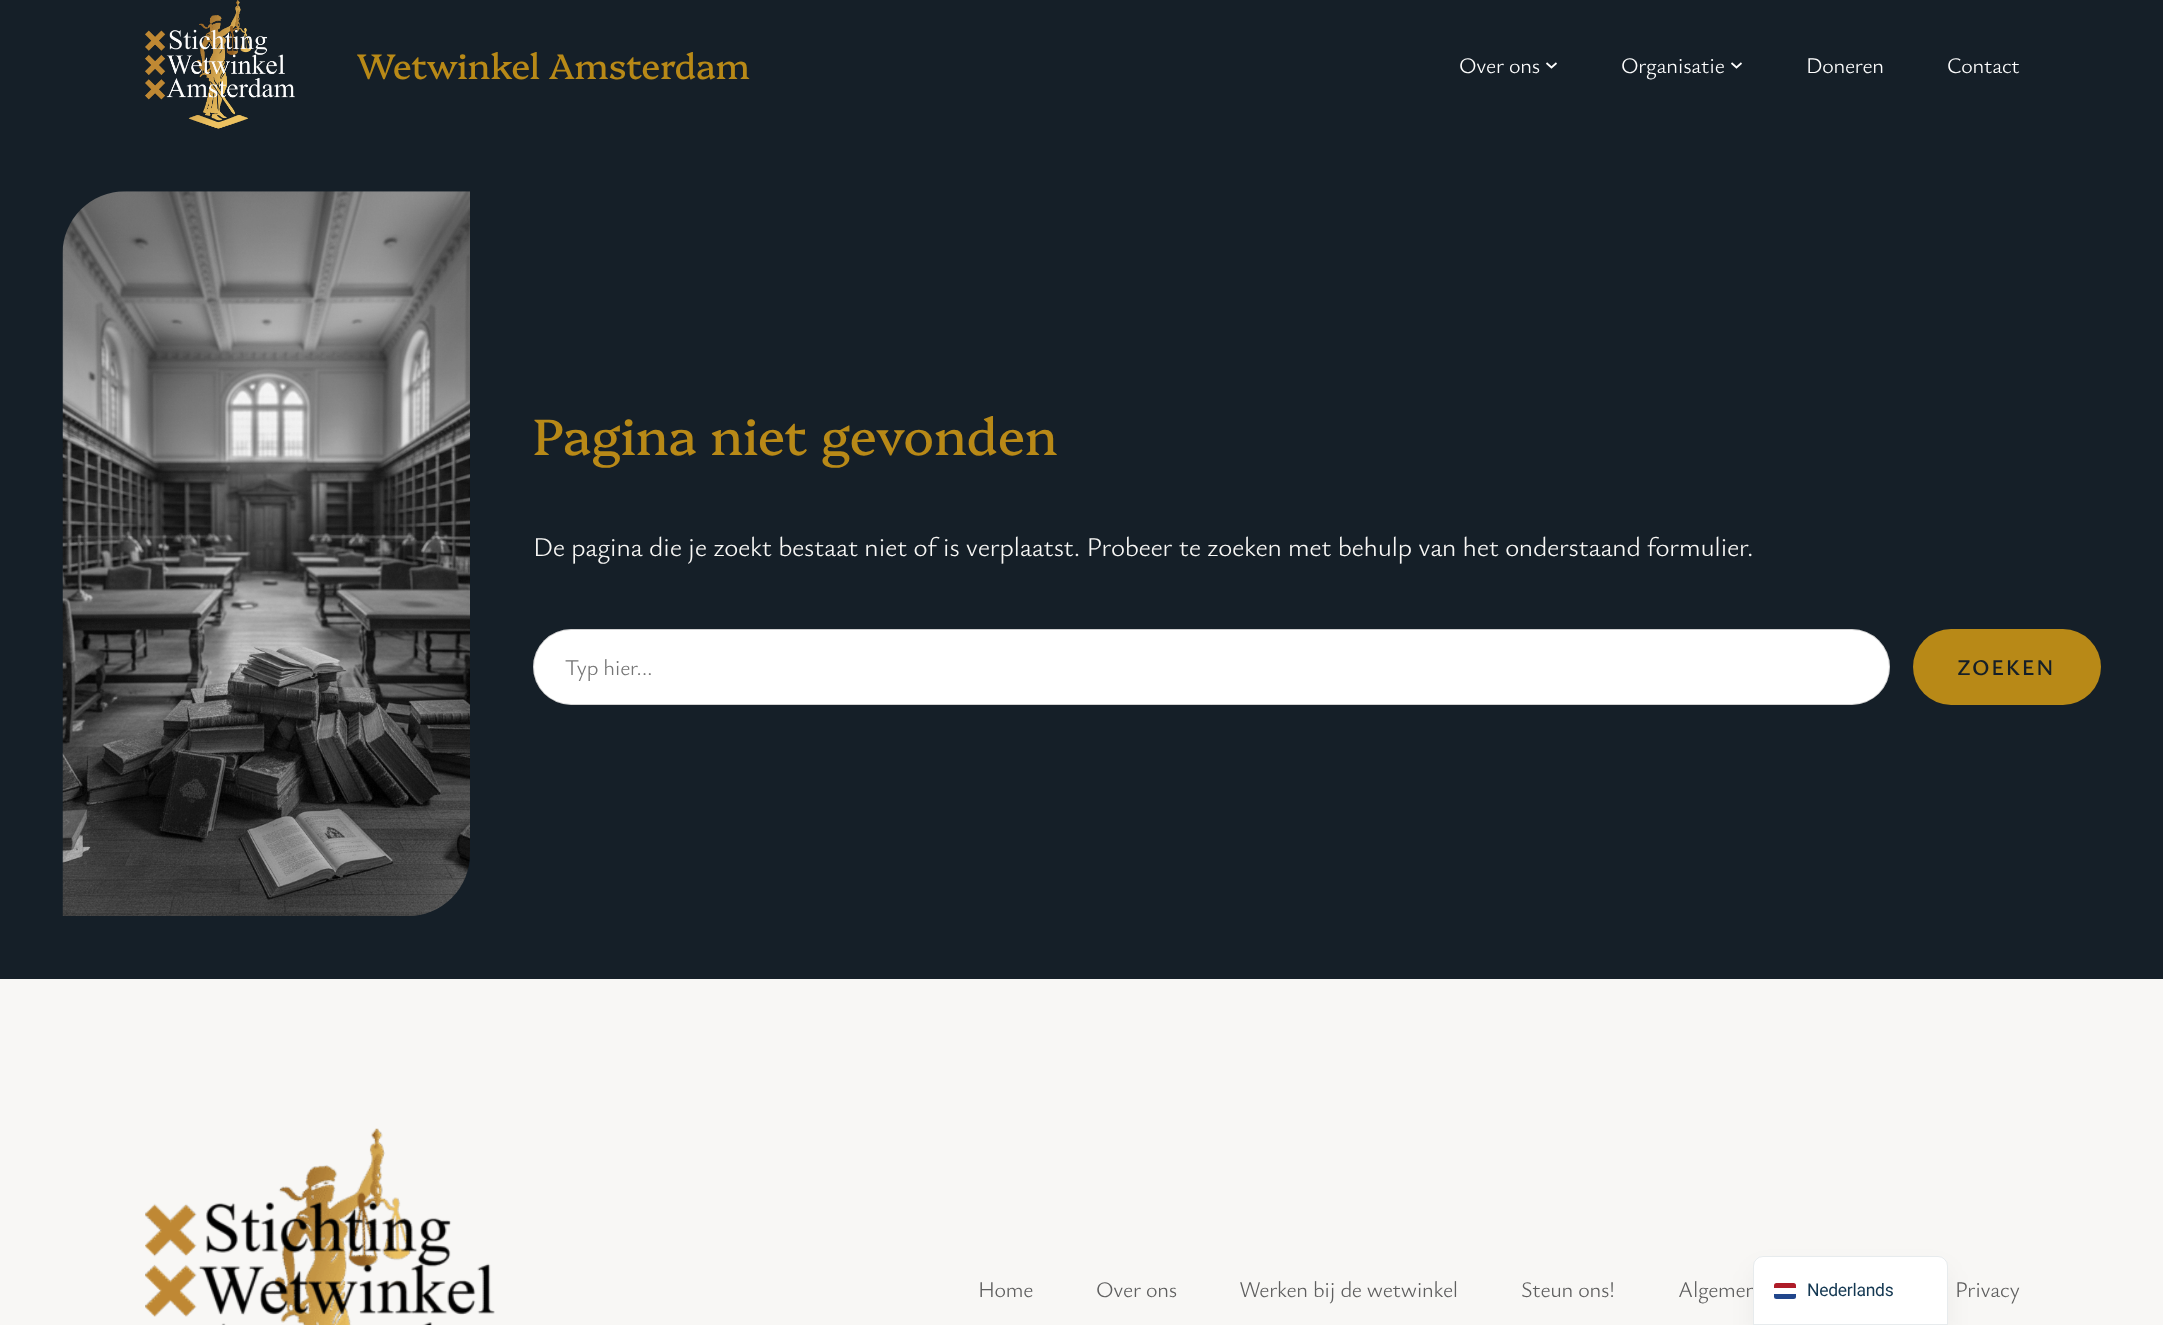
(async () => {
    const canvas = document.querySelector("canvas");
    canvas.width = 2163;
    canvas.height = 1325;
    const context = canvas.getContext("2d");
    context.miterLimit = 4;
    context.fontKerning = "normal";
    function write(s, x, y, font, color) {
        context.font = font;
        context.fillStyle = color;
        context.fillText(s, x, y);
    }
    function block(x, y, w, h, color) {
        context.fillStyle = color;
        context.fillRect(x, y, w, h);
    }
    function card(x, y, w, h, r, color) {
        context.fillStyle = color;
        context.beginPath();
        context.roundRect(x, y, w, h, r);
        context.fill();
    }
    async function photo(src, x, y, w, h) {
        const img = new Image();
        img.src = src;
        await img.decode();
        context.drawImage(img, x, y, w, h);
    }

    block(0, 0, 2163, 1325, "rgb(248, 247, 245)");
    block(0, 0, 2163, 979, "rgb(21, 31, 40)");
    await photo("media/1.png", 145, 0, 150, 129);
    context.letterSpacing = "-0.1px";
    write("Wetwinkel Amsterdam", 357, 79, "35.4px Platypi", "rgb(184, 137, 23)");
    context.letterSpacing = "-0.28px";
    write("Over ons", 1459, 73, "300 22.25px Ysabeau Office", "rgb(255, 255, 255)");
    context.beginPath();
    context.moveTo(1546.5, 63);
    context.lineTo(1551.5, 67.5);
    context.lineTo(1556.5, 63);
    context.strokeStyle = "rgb(255, 255, 255)";
    context.lineWidth = 1.7;
    context.stroke();
    write("Organisatie", 1621, 73, "300 22.25px Ysabeau Office", "rgb(255, 255, 255)");
    context.beginPath();
    context.moveTo(1731.5, 63);
    context.lineTo(1736.5, 67.5);
    context.lineTo(1741.5, 63);
    context.stroke();
    write("Doneren", 1806, 73, "300 22.25px Ysabeau Office", "rgb(255, 255, 255)");
    write("Contact", 1947, 73, "300 22.25px Ysabeau Office", "rgb(255, 255, 255)");
    await photo("media/2.png", 62, 191, 408, 725);
    context.letterSpacing = "-0.1px";
    write("Pagina niet gevonden", 533, 455, "51px Platypi", "rgb(184, 137, 23)");
    context.letterSpacing = "-0.28px";
    write("De pagina die je zoekt bestaat niet of is verplaatst. Probeer te zoeken met behulp van het onderstaand formulier.", 533, 556, "300 27.1px Ysabeau Office", "rgb(248, 247, 245)");
    card(533, 629, 1357, 76, 38, "rgb(255, 255, 255)");
    context.beginPath();
    context.roundRect(533.5, 629.5, 1356, 75, 37.5);
    context.strokeStyle = "rgba(25, 25, 25, 0.2)";
    context.lineWidth = 1;
    context.stroke();
    context.save();
    context.beginPath();
    context.rect(565, 651, 1273, 30);
    context.clip();
    write("Typ hier...", 565, 675, "300 22.25px Ysabeau Office", "rgb(117, 117, 117)");
    context.restore();
    card(1913, 629, 188, 76, 38, "rgb(184, 137, 23)");
    context.letterSpacing = "1.75px";
    write("ZOEKEN", 1957, 675, "600 22.25px Ysabeau Office", "rgb(21, 31, 40)");
    await photo("media/3.png", 145, 1128, 350, 197);
    context.letterSpacing = "-0.28px";
    write("Home", 978, 1297, "300 22.25px Ysabeau Office", "rgb(95, 95, 95)");
    write("Over ons", 1096, 1297, "300 22.25px Ysabeau Office", "rgb(95, 95, 95)");
    write("Werken bij de wetwinkel", 1239, 1297, "300 22.25px Ysabeau Office", "rgb(95, 95, 95)");
    write("Steun ons!", 1521, 1297, "300 22.25px Ysabeau Office", "rgb(95, 95, 95)");
    write("Algemen", 1678, 1297, "300 22.25px Ysabeau Office", "rgb(95, 95, 95)");
    write("Privacy", 1955, 1297, "300 22.25px Ysabeau Office", "rgb(95, 95, 95)");
    context.fillStyle = "rgba(0, 0, 0, 0.05)";
    context.filter = "blur(12.5px)";
    context.beginPath();
    context.roundRect(1753, 1269, 195, 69, 10);
    context.fill();
    context.filter = "none";
    context.fillStyle = "rgb(255, 255, 255)";
    context.beginPath();
    context.roundRect(1753, 1256, 195, 69, [10, 10, 0, 0]);
    context.fill();
    context.beginPath();
    context.roundRect(1753.5, 1256.5, 194, 68, [9.5, 9.5, 0, 0]);
    context.strokeStyle = "rgba(20, 56, 82, 0.1)";
    context.stroke();
    context.fillStyle = "rgb(174, 28, 40)";
    context.beginPath();
    context.roundRect(1774, 1283, 22, 5, [2.5, 2.5, 0, 0]);
    context.fill();
    context.fillStyle = "rgb(33, 70, 139)";
    context.beginPath();
    context.roundRect(1774, 1294, 22, 5, [0, 0, 2.5, 2.5]);
    context.fill();
    write("Nederlands", 1807, 1296, "17.5px Roboto", "rgb(20, 56, 82)");
})();
